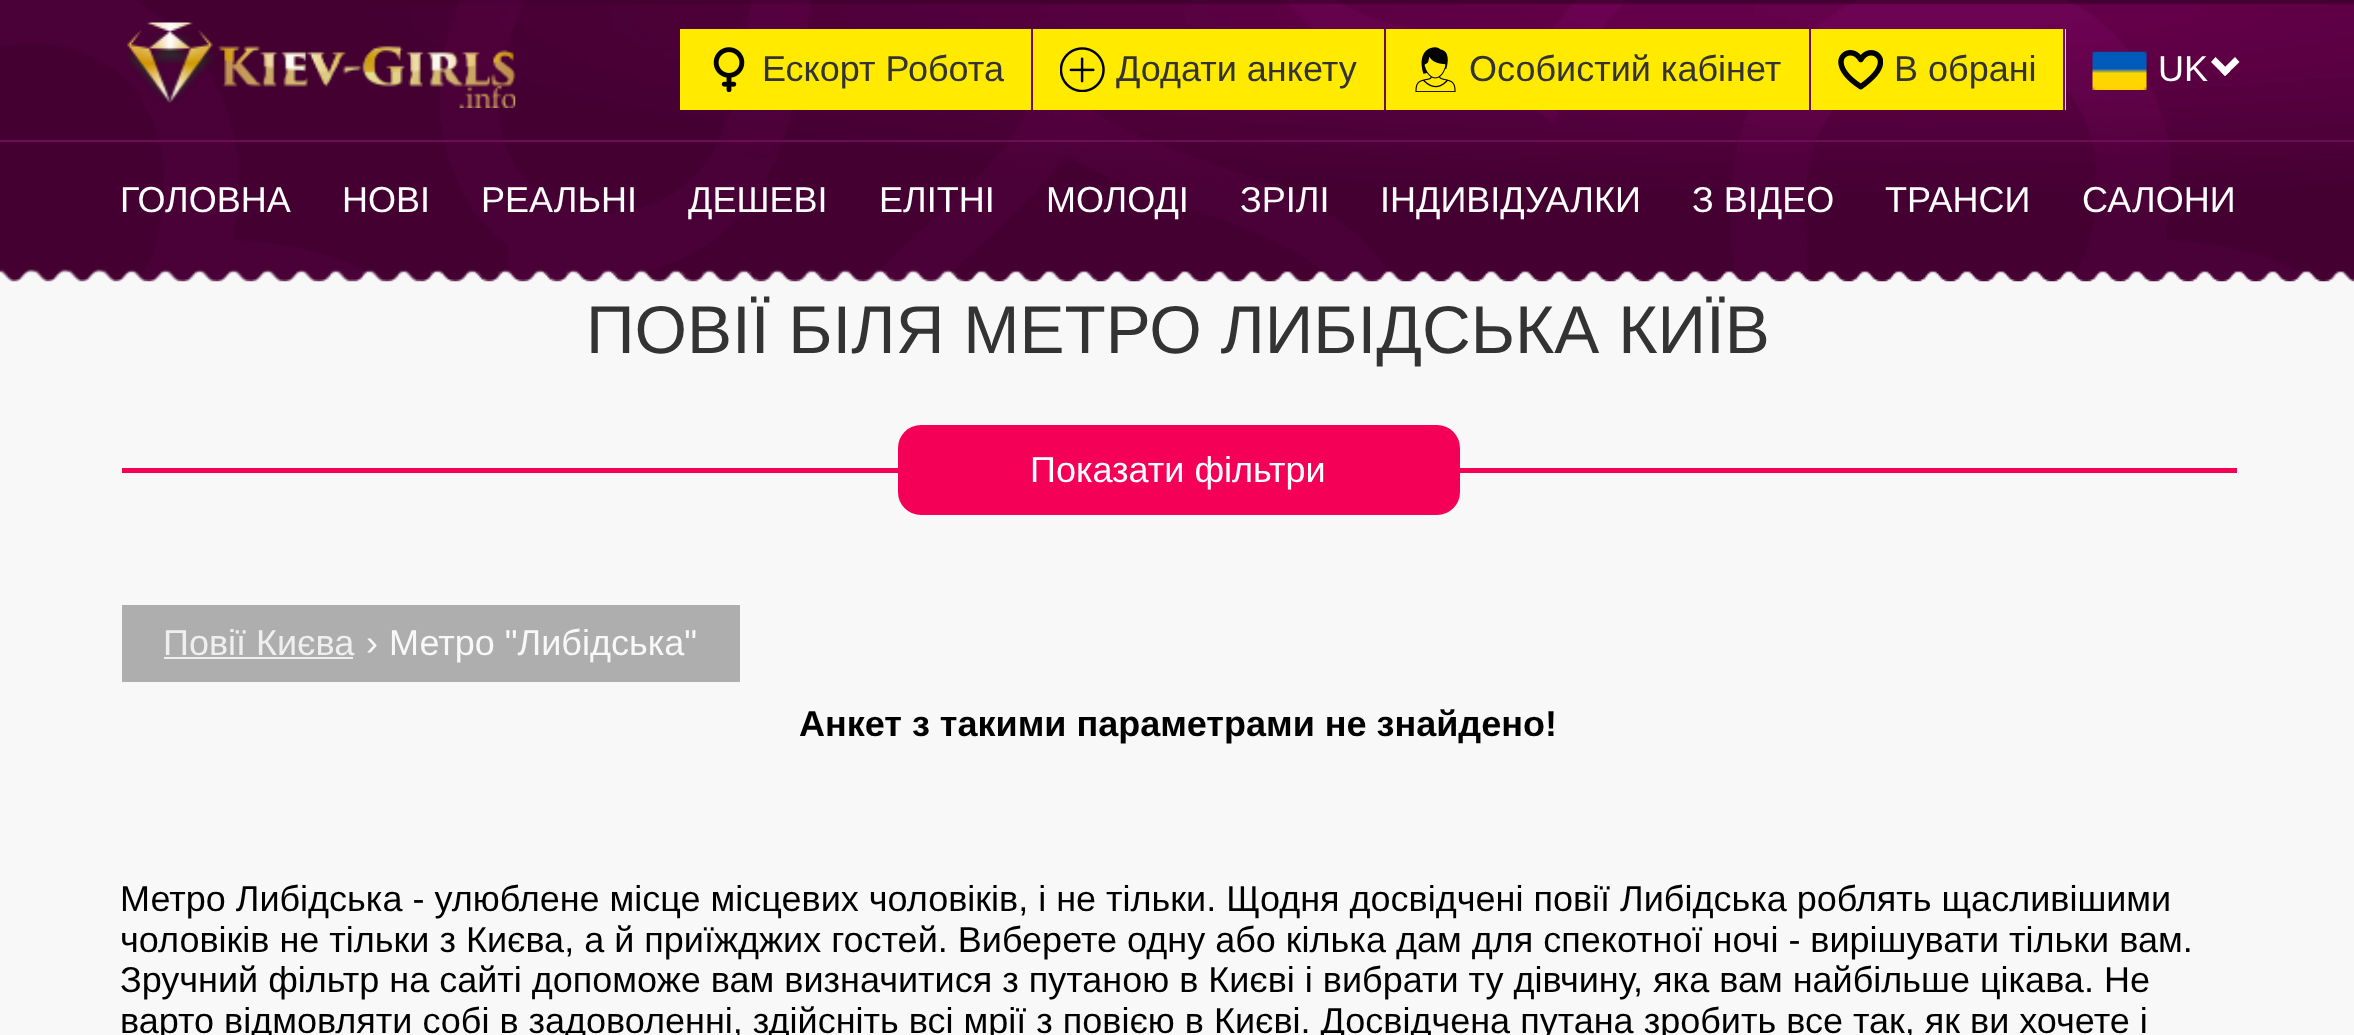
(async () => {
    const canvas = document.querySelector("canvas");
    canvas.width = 2354;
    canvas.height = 1035;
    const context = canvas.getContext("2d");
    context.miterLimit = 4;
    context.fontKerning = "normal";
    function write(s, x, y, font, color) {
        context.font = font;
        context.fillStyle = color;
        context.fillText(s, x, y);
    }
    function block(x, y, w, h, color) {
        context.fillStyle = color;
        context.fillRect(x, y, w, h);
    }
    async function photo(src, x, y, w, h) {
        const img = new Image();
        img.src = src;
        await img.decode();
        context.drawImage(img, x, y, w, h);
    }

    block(0, 0, 2354, 1035, "rgb(248, 248, 248)");
    await photo("media/1.png", 0, 0, 2354, 282);
    block(0, 140, 2354, 2, "rgb(110, 11, 86)");
    await photo("media/2.png", 126, 22, 390, 86);
    block(680, 29, 351, 81, "rgb(255, 234, 0)");
    block(1031, 29, 2, 81, "rgb(110, 11, 86)");
    await photo("media/3.png", 713, 47, 32, 45);
    write("Ескорт Робота", 762, 81, "36px Liberation Sans", "rgb(51, 51, 51)");
    block(1033, 29, 351, 81, "rgb(255, 234, 0)");
    block(1384, 29, 2, 81, "rgb(110, 11, 86)");
    await photo("media/4.png", 1060, 47, 45, 45);
    write("Додати анкету", 1116, 81, "36px Liberation Sans", "rgb(51, 51, 51)");
    block(1386, 29, 423, 81, "rgb(255, 234, 0)");
    block(1809, 29, 2, 81, "rgb(110, 11, 86)");
    await photo("media/5.png", 1415, 47, 41, 45);
    write("Особистий кабінет", 1469, 81, "36px Liberation Sans", "rgb(51, 51, 51)");
    block(1811, 29, 255, 81, "rgb(255, 234, 0)");
    block(2063, 29, 2, 81, "rgb(110, 11, 86)");
    await photo("media/6.png", 1838, 50, 45, 40);
    write("В обрані", 1894, 81, "36px Liberation Sans", "rgb(51, 51, 51)");
    await photo("media/7.png", 2092, 51, 55, 39);
    write("UK", 2158, 81, "36px Liberation Sans", "rgb(255, 255, 255)");
    context.beginPath();
    context.moveTo(2235, 57);
    context.lineTo(2239.5, 62);
    context.lineTo(2225, 76);
    context.lineTo(2220.5, 71.5);
    context.closePath();
    context.fill();
    context.beginPath();
    context.moveTo(2215.5, 57);
    context.lineTo(2230, 71.5);
    context.lineTo(2225, 76);
    context.lineTo(2211, 62);
    context.closePath();
    context.fill();
    write("ГОЛОВНА", 120, 212, "36px Liberation Sans", "rgb(255, 255, 255)");
    write("НОВІ", 342, 212, "36px Liberation Sans", "rgb(255, 255, 255)");
    write("РЕАЛЬНІ", 481, 212, "36px Liberation Sans", "rgb(255, 255, 255)");
    write("ДЕШЕВІ", 688, 212, "36px Liberation Sans", "rgb(255, 255, 255)");
    write("ЕЛІТНІ", 879, 212, "36px Liberation Sans", "rgb(255, 255, 255)");
    write("МОЛОДІ", 1046, 212, "36px Liberation Sans", "rgb(255, 255, 255)");
    write("ЗРІЛІ", 1240, 212, "36px Liberation Sans", "rgb(255, 255, 255)");
    write("ІНДИВІДУАЛКИ", 1380, 212, "36px Liberation Sans", "rgb(255, 255, 255)");
    write("З ВІДЕО", 1692, 212, "36px Liberation Sans", "rgb(255, 255, 255)");
    write("ТРАНСИ", 1885, 212, "36px Liberation Sans", "rgb(255, 255, 255)");
    write("САЛОНИ", 2082, 212, "36px Liberation Sans", "rgb(255, 255, 255)");
    write("ПОВІЇ БІЛЯ МЕТРО ЛИБІДСЬКА КИЇВ", 586, 353, "67.5px Liberation Sans", "rgb(51, 51, 51)");
    block(122, 468, 2115, 5, "rgb(245, 0, 87)");
    context.beginPath();
    context.roundRect(899, 426, 560, 88, 22);
    context.fill();
    context.strokeStyle = "rgb(245, 0, 87)";
    context.lineWidth = 2;
    context.stroke();
    write("Показати фільтри", 1030, 482, "36px Liberation Sans", "rgb(255, 255, 255)");
    block(122, 605, 618, 77, "rgb(174, 174, 174)");
    write("Повії Києва", 163, 655, "36px Liberation Sans", "rgb(239, 239, 239)");
    block(164, 657, 189, 2, "rgb(239, 239, 239)");
    write("›", 366, 655, "36px Liberation Sans", "rgb(248, 248, 248)");
    write("Метро \"Либідська\"", 389, 655, "36px Liberation Sans", "rgb(248, 248, 248)");
    write("Анкет з такими параметрами не знайдено!", 799, 736, "bold 36px Liberation Sans", "rgb(0, 0, 0)");
    write("Метро Либідська - улюблене місце місцевих чоловіків, і не тільки. Щодня досвідчені повії Либідська роблять щасливішими", 120, 911, "36px Liberation Sans", "rgb(0, 0, 0)");
    write("чоловіків не тільки з Києва, а й приїжджих гостей. Виберете одну або кілька дам для спекотної ночі - вирішувати тільки вам.", 120, 952, "36px Liberation Sans", "rgb(0, 0, 0)");
    write("Зручний фільтр на сайті допоможе вам визначитися з путаною в Києві і вибрати ту дівчину, яка вам найбільше цікава. Не", 120, 992, "36px Liberation Sans", "rgb(0, 0, 0)");
    write("варто відмовляти собі в задоволенні, здійсніть всі мрії з повією в Києві. Досвідчена путана зробить все так, як ви хочете і", 120, 1033, "36px Liberation Sans", "rgb(0, 0, 0)");
})();
